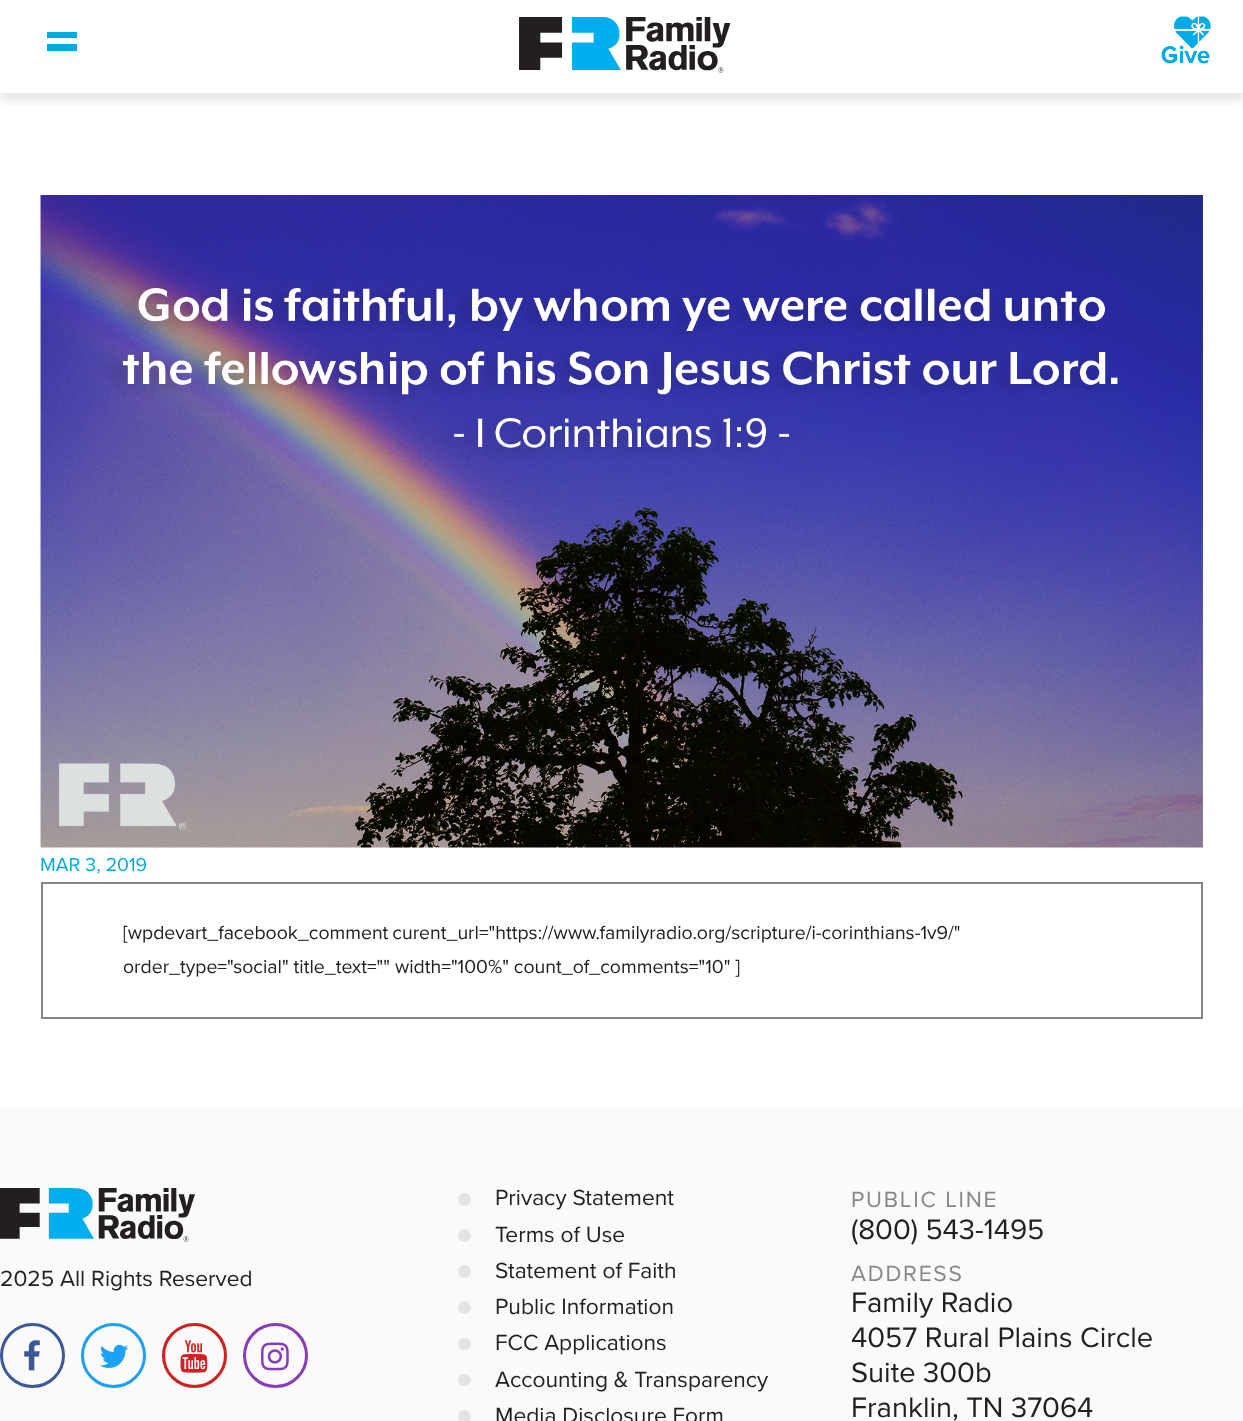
<?xml version="1.0" encoding="UTF-8"?>
<svg xmlns="http://www.w3.org/2000/svg" xmlns:xlink="http://www.w3.org/1999/xlink" width="1243" height="1421">
  <defs>
    <clipPath id="clip1"><rect x="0" y="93" width="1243" height="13" /></clipPath>
  </defs>
  <rect width="100%" height="100%" fill="#ffffff" />
  <g clip-path="url(#clip1)">
    <rect y="8" width="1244" height="93" fill="#878787" fill-opacity="0.2" filter="blur(4px)" />
  </g>
  <rect x="47" y="32" width="30" height="6" fill="#00abe5" />
  <rect x="47" y="44" width="30" height="7" fill="#00abe5" />
  <image x="519" y="17" width="212" height="56" xlink:href="image1.png" />
  <image x="1161" y="16" width="50" height="48" xlink:href="image2.png" />
  <image x="40" y="195" width="1163" height="653" xlink:href="image3.png" />
  <rect x="42" y="883" width="1160" height="135" fill="none" stroke="#808589" stroke-width="2" />
  <rect y="1107" width="1243" height="314" fill="#fafafa" />
  <image x="0" y="1188" width="195" height="54" xlink:href="image4.png" />
  <circle cx="32.5" cy="1355.5" r="31" fill="none" stroke="#3b5998" stroke-width="3" />
  <image x="24" y="1340" width="16" height="31" xlink:href="image5.png" />
  <circle cx="113.5" cy="1355.5" r="31" fill="none" stroke="#1da1f2" stroke-width="3" />
  <image x="100" y="1344" width="29" height="24" xlink:href="image6.png" />
  <circle cx="194.5" cy="1355.5" r="31" fill="none" stroke="#cd201f" stroke-width="3" />
  <image x="180" y="1340" width="28" height="33" xlink:href="image7.png" />
  <circle cx="275.5" cy="1355.5" r="31" fill="none" stroke="#8a3ab9" stroke-width="3" />
  <image x="261" y="1342" width="28" height="29" xlink:href="image8.png" />
  <circle cx="464.5" cy="1199.5" r="6.5" fill="#e5e4e4" />
  <circle cx="464.5" cy="1235.5" r="6.5" fill="#e5e4e4" />
  <circle cx="464.5" cy="1271.5" r="6.5" fill="#e5e4e4" />
  <circle cx="464.5" cy="1307.5" r="6.5" fill="#e5e4e4" />
  <rect x="458" y="1338" width="13" height="12" rx="6" fill="#e5e4e4" />
  <rect x="458" y="1374" width="13" height="12" rx="6" fill="#e5e4e4" />
  <rect x="458" y="1410" width="13" height="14" rx="6.5" fill="#e5e4e4" />
  <text x="40" y="871" style="font-family: Proxima Nova; font-size: 19.45px; fill: #00abe5">MAR 3, 2019</text>
  <text x="123" y="939" word-spacing="-1" style="font-family: Proxima Nova; font-size: 19.45px; fill: #242021">[wpdevart_facebook_comment curent_url="https://www.familyradio.org/scripture/i-corinthians-1v9/"</text>
  <text x="123" y="973" style="font-family: Proxima Nova; font-size: 19.45px; fill: #242021">order_type="social" title_text="" width="100%" count_of_comments="10" ]</text>
  <text x="0" y="1286" style="font-family: Proxima Nova; font-size: 22.75px; fill: #242021">2025 All Rights Reserved</text>
  <text x="495" y="1205" style="font-family: Proxima Nova; font-size: 22.75px; fill: #242021">Privacy Statement</text>
  <text x="495" y="1242" style="font-family: Proxima Nova; font-size: 22.75px; fill: #242021">Terms of Use</text>
  <text x="495" y="1278" style="font-family: Proxima Nova; font-size: 22.75px; fill: #242021">Statement of Faith</text>
  <text x="495" y="1314" style="font-family: Proxima Nova; font-size: 22.75px; fill: #242021">Public Information</text>
  <text x="495" y="1350" style="font-family: Proxima Nova; font-size: 22.75px; fill: #242021">FCC Applications</text>
  <text x="495" y="1387" style="font-family: Proxima Nova; font-size: 22.75px; fill: #242021">Accounting &amp; Transparency</text>
  <text x="495" y="1423" style="font-family: Proxima Nova; font-size: 22.75px; fill: #242021">Media Disclosure Form</text>
  <text x="851" y="1207" style="font-family: Proxima Nova; font-size: 22.75px; letter-spacing: 1.75px; fill: #868686">PUBLIC LINE</text>
  <text x="851" y="1239" style="font-family: Proxima Nova; font-size: 29.1px; fill: #242021">(800) 543-1495</text>
  <text x="851" y="1281" style="font-family: Proxima Nova; font-size: 22.75px; letter-spacing: 1.75px; fill: #868686">ADDRESS</text>
  <text x="851" y="1312" style="font-family: Proxima Nova; font-size: 29.1px; fill: #242021">Family Radio</text>
  <text x="851" y="1347" style="font-family: Proxima Nova; font-size: 29.1px; fill: #242021">4057 Rural Plains Circle</text>
  <text x="851" y="1382" style="font-family: Proxima Nova; font-size: 29.1px; fill: #242021">Suite 300b</text>
  <text x="851" y="1417" style="font-family: Proxima Nova; font-size: 29.1px; fill: #242021">Franklin, TN 37064</text>
</svg>
